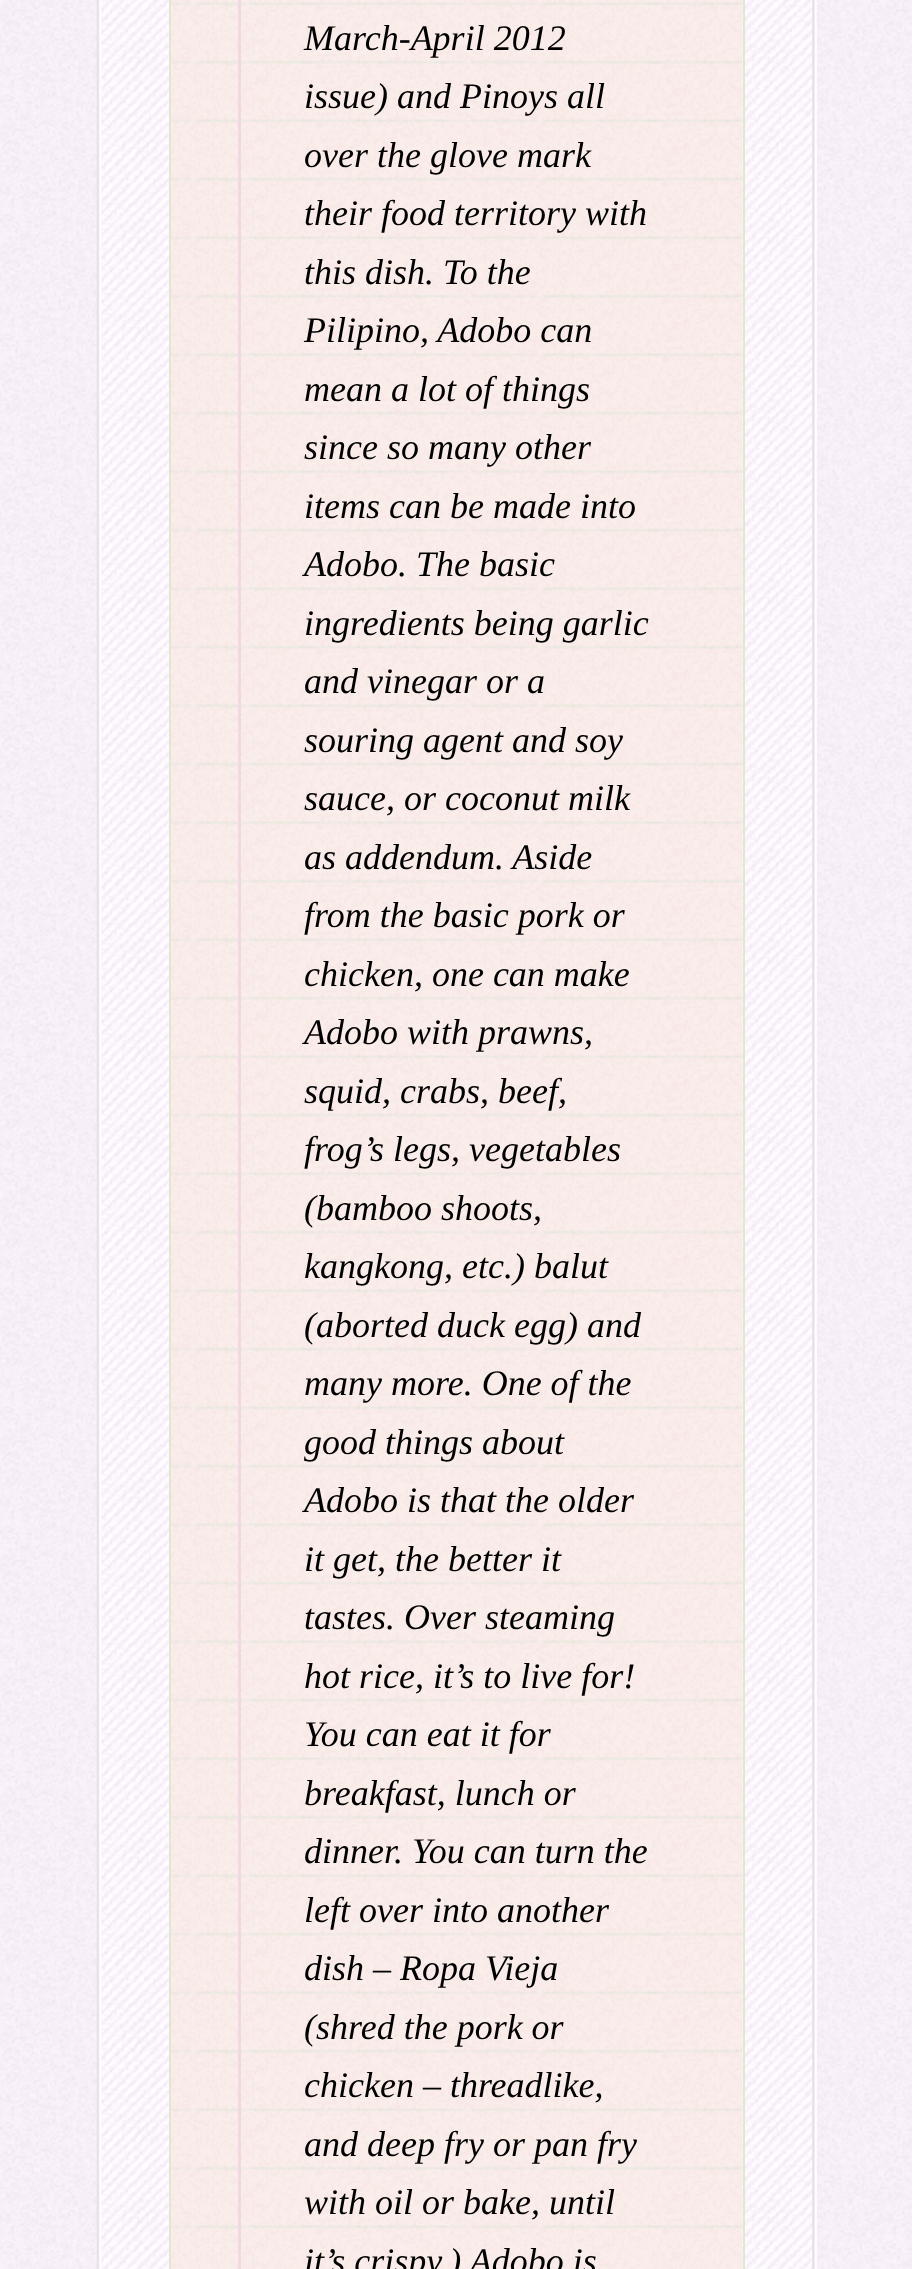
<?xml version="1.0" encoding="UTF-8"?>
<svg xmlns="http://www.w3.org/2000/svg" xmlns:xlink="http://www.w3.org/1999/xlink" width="912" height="2269">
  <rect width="100%" height="100%" fill="#ffffff" />
  <image x="0" y="0" width="912" height="2269" xlink:href="image1.png" />
  <image x="101" y="0" width="712" height="2269" xlink:href="image2.png" />
  <image x="96" y="0" width="6" height="2269" xlink:href="image3.png" />
  <rect x="743" width="2" height="2269" fill="#e1e7d0" />
  <rect x="169" width="2" height="2269" fill="#e1e7d0" />
  <image x="171" y="0" width="572" height="2269" xlink:href="image4.png" />
  <rect x="238" width="3" height="2269" fill="#f2d9e1" />
  <image x="812" y="0" width="5" height="2269" xlink:href="image5.png" />
  <text x="304" y="50" style="font-family: Liberation Serif; font-size: 36px; font-style: italic; fill: #000000">March-April 2012</text>
  <text x="304" y="108" style="font-family: Liberation Serif; font-size: 36px; font-style: italic; fill: #000000">issue) and Pinoys all</text>
  <text x="304" y="167" style="font-family: Liberation Serif; font-size: 36px; font-style: italic; fill: #000000">over the glove mark</text>
  <text x="304" y="225" style="font-family: Liberation Serif; font-size: 36px; font-style: italic; fill: #000000">their food territory with</text>
  <text x="304" y="284" style="font-family: Liberation Serif; font-size: 36px; font-style: italic; fill: #000000">this dish. To the</text>
  <text x="304" y="342" style="font-family: Liberation Serif; font-size: 36px; font-style: italic; fill: #000000">Pilipino, Adobo can</text>
  <text x="304" y="401" style="font-family: Liberation Serif; font-size: 36px; font-style: italic; fill: #000000">mean a lot of things</text>
  <text x="304" y="459" style="font-family: Liberation Serif; font-size: 36px; font-style: italic; fill: #000000">since so many other</text>
  <text x="304" y="518" style="font-family: Liberation Serif; font-size: 36px; font-style: italic; fill: #000000">items can be made into</text>
  <text x="304" y="576" style="font-family: Liberation Serif; font-size: 36px; font-style: italic; fill: #000000">Adobo. The basic</text>
  <text x="304" y="635" style="font-family: Liberation Serif; font-size: 36px; font-style: italic; fill: #000000">ingredients being garlic</text>
  <text x="304" y="693" style="font-family: Liberation Serif; font-size: 36px; font-style: italic; fill: #000000">and vinegar or a</text>
  <text x="304" y="752" style="font-family: Liberation Serif; font-size: 36px; font-style: italic; fill: #000000">souring agent and soy</text>
  <text x="304" y="810" style="font-family: Liberation Serif; font-size: 36px; font-style: italic; fill: #000000">sauce, or coconut milk</text>
  <text x="304" y="869" style="font-family: Liberation Serif; font-size: 36px; font-style: italic; fill: #000000">as addendum. Aside</text>
  <text x="304" y="927" style="font-family: Liberation Serif; font-size: 36px; font-style: italic; fill: #000000">from the basic pork or</text>
  <text x="304" y="986" style="font-family: Liberation Serif; font-size: 36px; font-style: italic; fill: #000000">chicken, one can make</text>
  <text x="304" y="1044" style="font-family: Liberation Serif; font-size: 36px; font-style: italic; fill: #000000">Adobo with prawns,</text>
  <text x="304" y="1103" style="font-family: Liberation Serif; font-size: 36px; font-style: italic; fill: #000000">squid, crabs, beef,</text>
  <text x="304" y="1161" style="font-family: Liberation Serif; font-size: 36px; font-style: italic; fill: #000000">frog’s legs, vegetables</text>
  <text x="304" y="1220" style="font-family: Liberation Serif; font-size: 36px; font-style: italic; fill: #000000">(bamboo shoots,</text>
  <text x="304" y="1278" style="font-family: Liberation Serif; font-size: 36px; font-style: italic; fill: #000000">kangkong, etc.) balut</text>
  <text x="304" y="1337" style="font-family: Liberation Serif; font-size: 36px; font-style: italic; fill: #000000">(aborted duck egg) and</text>
  <text x="304" y="1395" style="font-family: Liberation Serif; font-size: 36px; font-style: italic; fill: #000000">many more. One of the</text>
  <text x="304" y="1454" style="font-family: Liberation Serif; font-size: 36px; font-style: italic; fill: #000000">good things about</text>
  <text x="304" y="1512" style="font-family: Liberation Serif; font-size: 36px; font-style: italic; fill: #000000">Adobo is that the older</text>
  <text x="304" y="1571" style="font-family: Liberation Serif; font-size: 36px; font-style: italic; fill: #000000">it get, the better it</text>
  <text x="304" y="1629" style="font-family: Liberation Serif; font-size: 36px; font-style: italic; fill: #000000">tastes. Over steaming</text>
  <text x="304" y="1688" style="font-family: Liberation Serif; font-size: 36px; font-style: italic; fill: #000000">hot rice, it’s to live for!</text>
  <text x="304" y="1746" style="font-family: Liberation Serif; font-size: 36px; font-style: italic; fill: #000000">You can eat it for</text>
  <text x="304" y="1805" style="font-family: Liberation Serif; font-size: 36px; font-style: italic; fill: #000000">breakfast, lunch or</text>
  <text x="304" y="1863" style="font-family: Liberation Serif; font-size: 36px; font-style: italic; fill: #000000">dinner. You can turn the</text>
  <text x="304" y="1922" style="font-family: Liberation Serif; font-size: 36px; font-style: italic; fill: #000000">left over into another</text>
  <text x="304" y="1980" style="font-family: Liberation Serif; font-size: 36px; font-style: italic; fill: #000000">dish – Ropa Vieja</text>
  <text x="304" y="2039" style="font-family: Liberation Serif; font-size: 36px; font-style: italic; fill: #000000">(shred the pork or</text>
  <text x="304" y="2097" style="font-family: Liberation Serif; font-size: 36px; font-style: italic; fill: #000000">chicken – threadlike,</text>
  <text x="304" y="2156" style="font-family: Liberation Serif; font-size: 36px; font-style: italic; fill: #000000">and deep fry or pan fry</text>
  <text x="304" y="2214" style="font-family: Liberation Serif; font-size: 36px; font-style: italic; fill: #000000">with oil or bake, until</text>
  <text x="304" y="2273" style="font-family: Liberation Serif; font-size: 36px; font-style: italic; fill: #000000">it’s crispy.) Adobo is</text>
</svg>
